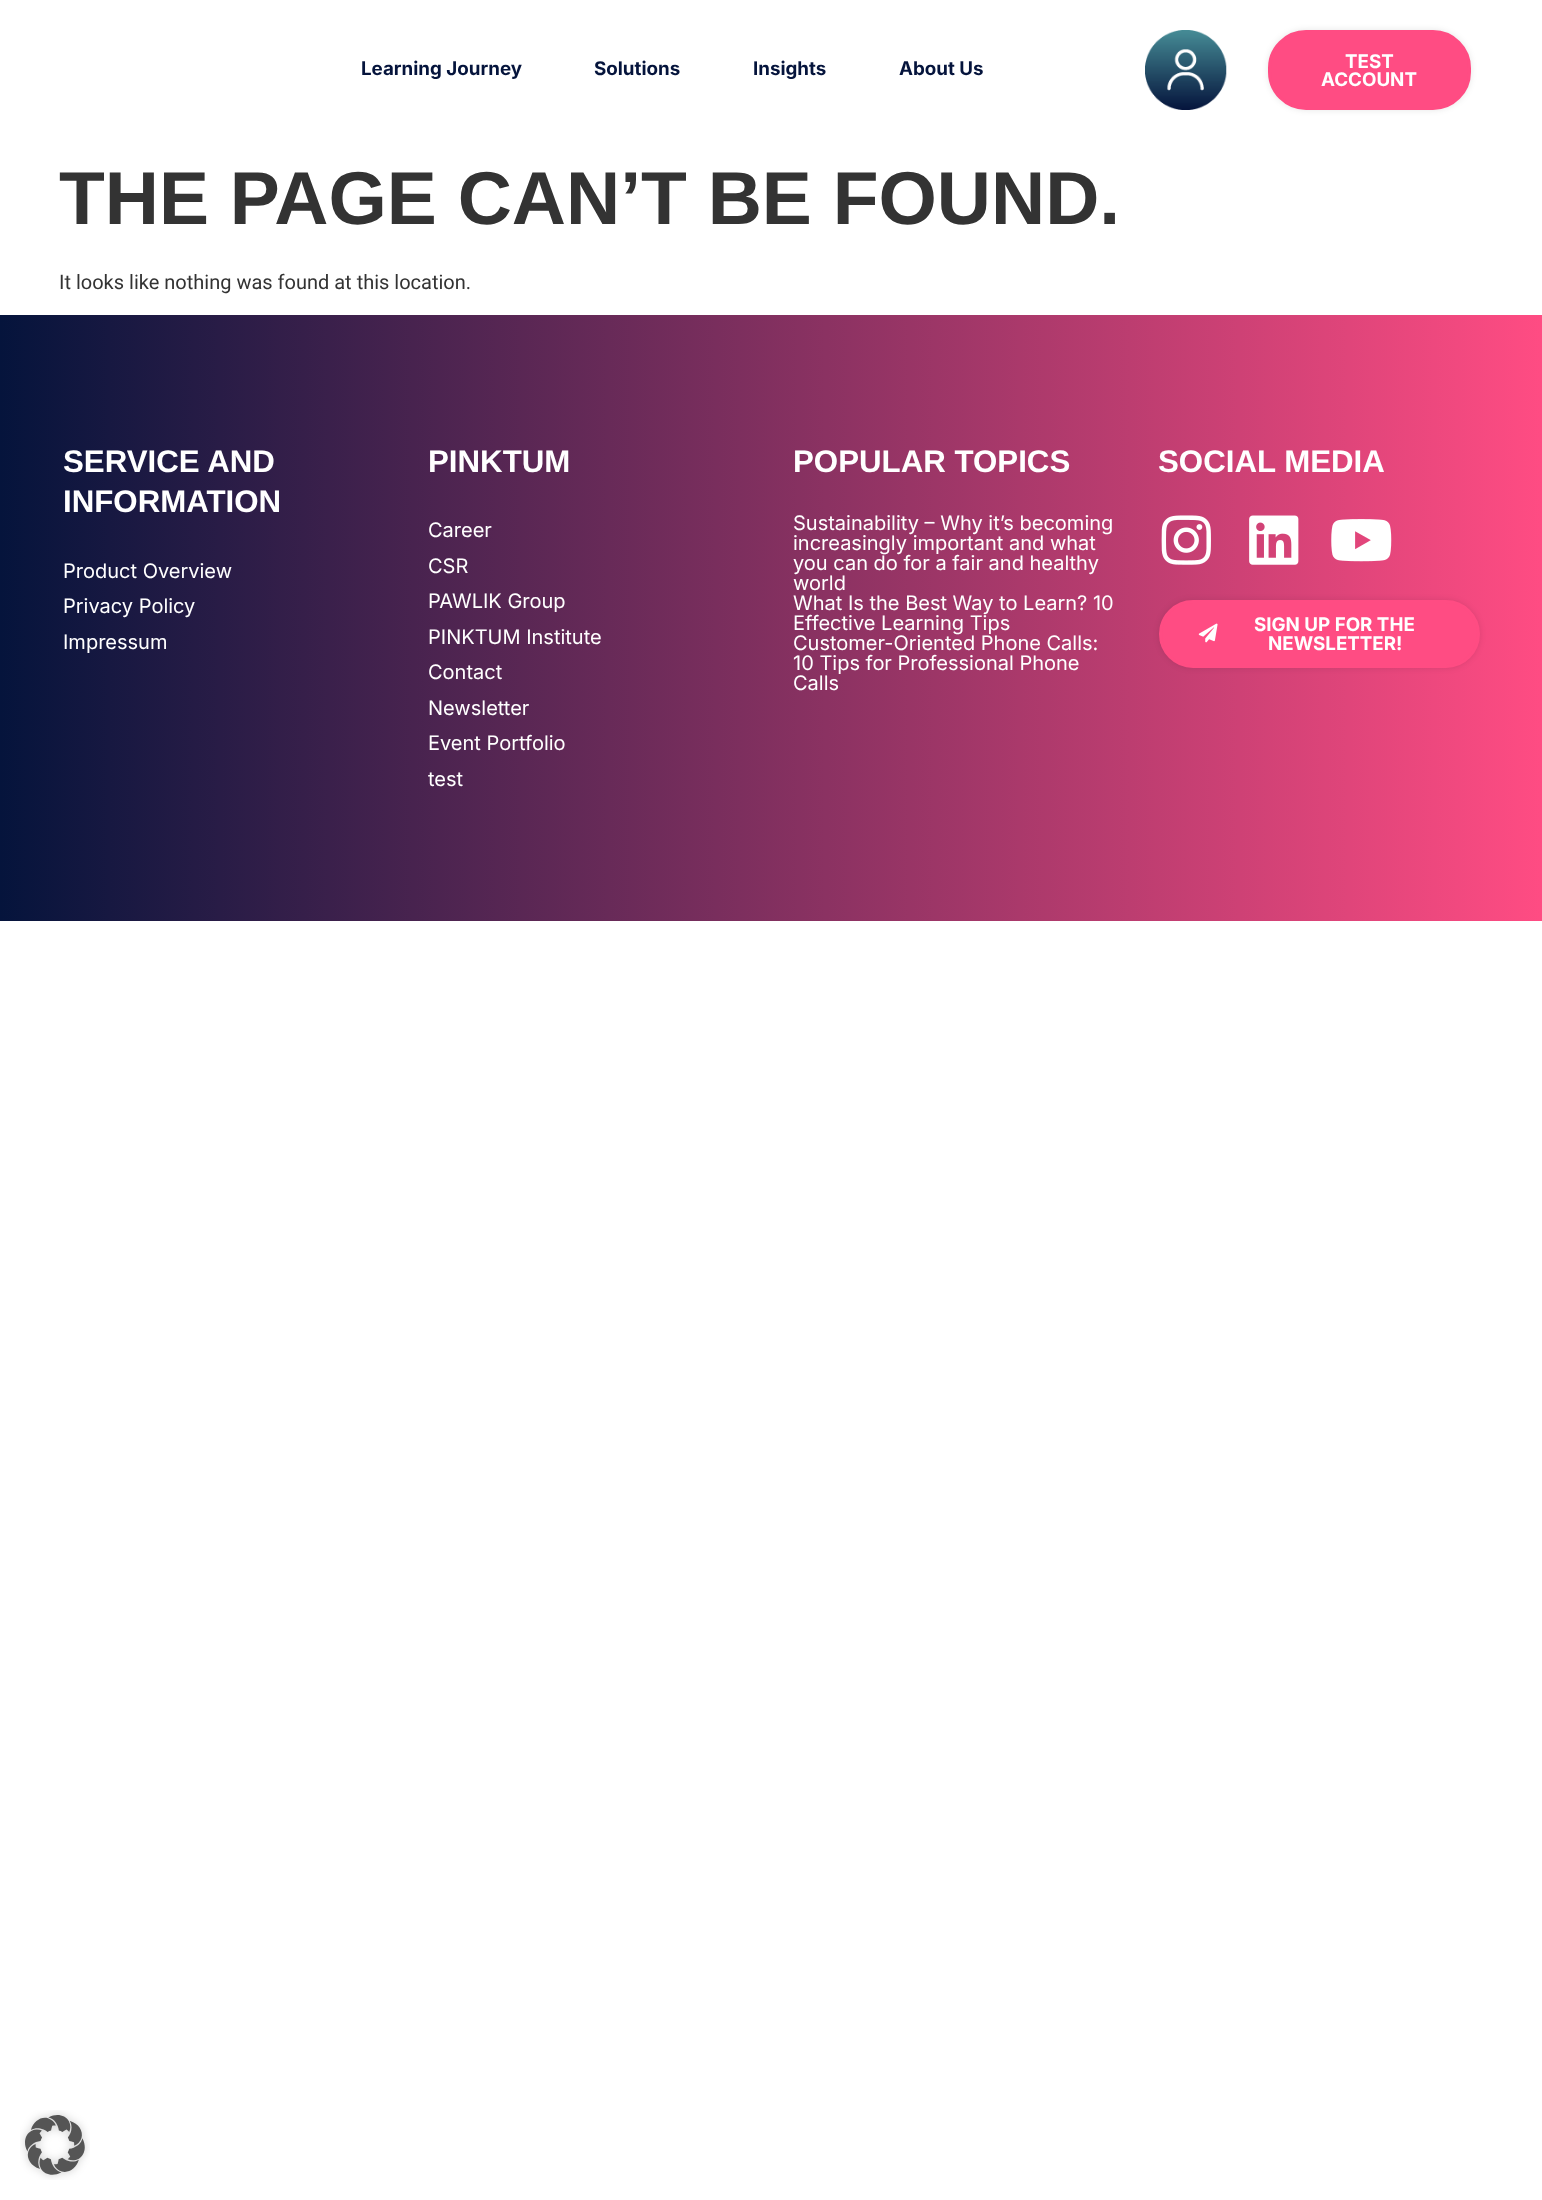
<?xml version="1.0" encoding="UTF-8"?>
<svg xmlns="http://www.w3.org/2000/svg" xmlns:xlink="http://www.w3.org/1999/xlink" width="1542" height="2200">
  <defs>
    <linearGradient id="g1" gradientUnits="userSpaceOnUse" x1="0" y1="618" x2="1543" y2="618"><stop offset="0" stop-color="#05143c" /><stop offset="1" stop-color="#ff4c83" /></linearGradient>
  </defs>
  <rect width="100%" height="100%" fill="#ffffff" />
  <image x="1145" y="30" width="82" height="80" xlink:href="image1.png" />
  <rect x="1268" y="30" width="203" height="80" rx="38" fill="#000000" fill-opacity="0.1" filter="blur(3px)" />
  <rect x="1269.5" y="31.5" width="200" height="77" rx="36.5" fill="#ff4c83" stroke="#ff4c83" stroke-width="3" />
  <rect y="315" width="1542" height="606" fill="url(#g1)" />
  <image x="1161" y="515" width="50" height="50" xlink:href="image2.png" />
  <image x="1249" y="515" width="50" height="50" xlink:href="image3.png" />
  <image x="1331" y="519" width="61" height="43" xlink:href="image4.png" />
  <rect x="1159" y="600" width="321" height="68" rx="34" fill="#000000" fill-opacity="0.1" filter="blur(3px)" />
  <rect x="1160.5" y="601.5" width="318" height="65" rx="32.5" fill="#ff4c83" stroke="#ff4c83" stroke-width="3" />
  <image x="1198" y="623" width="20" height="20" xlink:href="image5.png" />
  <image x="20" y="2110" width="70" height="70" xlink:href="image6.png" />
  <text x="361" y="75" style="font-family: Inter; font-size: 18.75px; font-weight: bold; fill: #05143c">Learning Journey</text>
  <text x="594" y="75" style="font-family: Inter; font-size: 18.75px; font-weight: bold; fill: #05143c">Solutions</text>
  <text x="753" y="75" style="font-family: Inter; font-size: 18.75px; font-weight: bold; fill: #05143c">Insights</text>
  <text x="899" y="75" style="font-family: Inter; font-size: 18.75px; font-weight: bold; fill: #05143c">About Us</text>
  <text x="1345" y="68" style="font-family: Inter; font-size: 18.75px; font-weight: bold; fill: #ffffff">TEST</text>
  <text x="1321" y="86" style="font-family: Inter; font-size: 18.75px; font-weight: bold; fill: #ffffff">ACCOUNT</text>
  <text x="59" y="224" style="font-family: Liberation Sans; font-size: 75px; font-weight: bold; fill: #333333">THE PAGE CAN’T BE FOUND.</text>
  <text x="59" y="289" style="font-family: Roboto; font-size: 20px; fill: #333333">It looks like nothing was found at this location.</text>
  <text x="63" y="472" style="font-family: Liberation Sans; font-size: 31.25px; font-weight: bold; fill: #ffffff">SERVICE AND</text>
  <text x="63" y="512" style="font-family: Liberation Sans; font-size: 31.25px; font-weight: bold; fill: #ffffff">INFORMATION</text>
  <text x="63" y="578" style="font-family: Inter; font-size: 20px; fill: #ffffff">Product Overview</text>
  <text x="63" y="613" style="font-family: Inter; font-size: 20px; fill: #ffffff">Privacy Policy</text>
  <text x="63" y="649" style="font-family: Inter; font-size: 20px; fill: #ffffff">Impressum</text>
  <text x="428" y="472" style="font-family: Liberation Sans; font-size: 31.25px; font-weight: bold; fill: #ffffff">PINKTUM</text>
  <text x="428" y="537" style="font-family: Inter; font-size: 20px; fill: #ffffff">Career</text>
  <text x="428" y="573" style="font-family: Inter; font-size: 20px; fill: #ffffff">CSR</text>
  <text x="428" y="608" style="font-family: Inter; font-size: 20px; fill: #ffffff">PAWLIK Group</text>
  <text x="428" y="644" style="font-family: Inter; font-size: 20px; fill: #ffffff">PINKTUM Institute</text>
  <text x="428" y="679" style="font-family: Inter; font-size: 20px; fill: #ffffff">Contact</text>
  <text x="428" y="715" style="font-family: Inter; font-size: 20px; fill: #ffffff">Newsletter</text>
  <text x="428" y="750" style="font-family: Inter; font-size: 20px; fill: #ffffff">Event Portfolio</text>
  <text x="428" y="786" style="font-family: Inter; font-size: 20px; fill: #ffffff">test</text>
  <text x="793" y="472" style="font-family: Liberation Sans; font-size: 31.25px; font-weight: bold; fill: #ffffff">POPULAR TOPICS</text>
  <text x="793" y="530" style="font-family: Inter; font-size: 20px; fill: #ffffff">Sustainability – Why it’s becoming</text>
  <text x="793" y="550" style="font-family: Inter; font-size: 20px; fill: #ffffff">increasingly important and what</text>
  <text x="793" y="570" style="font-family: Inter; font-size: 20px; fill: #ffffff">you can do for a fair and healthy</text>
  <text x="793" y="590" style="font-family: Inter; font-size: 20px; fill: #ffffff">world</text>
  <text x="793" y="610" style="font-family: Inter; font-size: 20px; fill: #ffffff">What Is the Best Way to Learn? 10</text>
  <text x="793" y="630" style="font-family: Inter; font-size: 20px; fill: #ffffff">Effective Learning Tips</text>
  <text x="793" y="650" style="font-family: Inter; font-size: 20px; fill: #ffffff">Customer-Oriented Phone Calls:</text>
  <text x="793" y="670" style="font-family: Inter; font-size: 20px; fill: #ffffff">10 Tips for Professional Phone</text>
  <text x="793" y="690" style="font-family: Inter; font-size: 20px; fill: #ffffff">Calls</text>
  <text x="1158" y="472" style="font-family: Liberation Sans; font-size: 31.25px; font-weight: bold; fill: #ffffff">SOCIAL MEDIA</text>
  <text x="1254" y="631" style="font-family: Inter; font-size: 18.75px; font-weight: bold; fill: #ffffff">SIGN UP FOR THE</text>
  <text x="1268" y="650" style="font-family: Inter; font-size: 18.75px; font-weight: bold; fill: #ffffff">NEWSLETTER!</text>
</svg>
